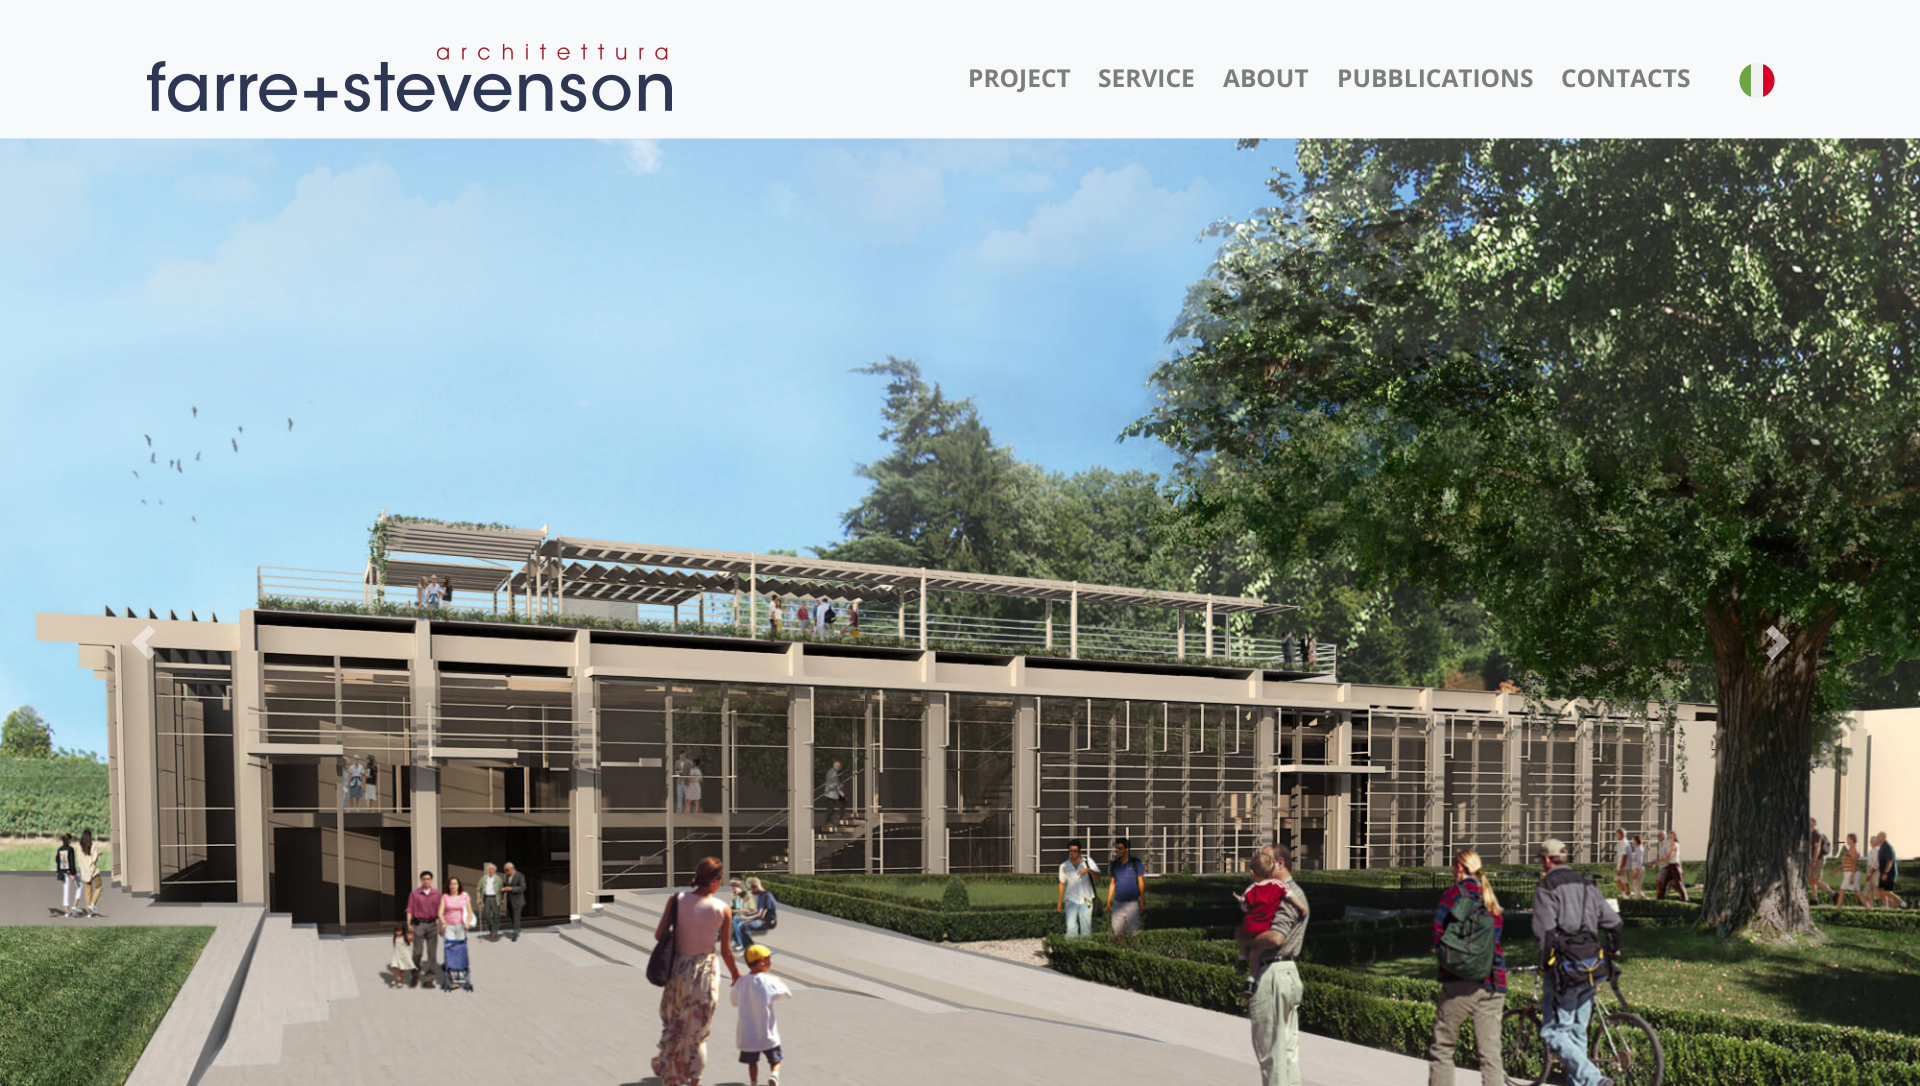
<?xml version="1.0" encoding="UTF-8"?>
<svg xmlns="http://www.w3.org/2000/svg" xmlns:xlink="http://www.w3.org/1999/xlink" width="1920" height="1086">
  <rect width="100%" height="100%" fill="#ffffff" />
  <rect width="1920" height="138" fill="#f8f9fa" />
  <image x="147" y="44" width="525" height="68" xlink:href="image1.png" />
  <image x="1739" y="63" width="36" height="35" xlink:href="image2.png" />
  <image x="0" y="138" width="1920" height="948" xlink:href="image3.png" />
  <path d="M 149 625 l -17.5 17 l 17.5 18 l 6.5 -7 l -11 -11 l 11 -10.5 z" fill="#ffffff" fill-opacity="0.5" />
  <path d="M 1772.5 625 l -6.5 6.5 l 11 10.5 l -11 11 l 6.5 7 l 17.5 -18 z" fill="#ffffff" fill-opacity="0.5" />
  <text x="968" y="87" style="font-family: Open Sans; font-size: 24.5px; font-weight: bold; fill: #7c7d7d">PROJECT</text>
  <text x="1098" y="87" style="font-family: Open Sans; font-size: 24.5px; font-weight: bold; fill: #7c7d7d">SERVICE</text>
  <text x="1223" y="87" style="font-family: Open Sans; font-size: 24.5px; font-weight: bold; fill: #7c7d7d">ABOUT</text>
  <text x="1337" y="87" style="font-family: Open Sans; font-size: 24.5px; font-weight: bold; fill: #7c7d7d">PUBBLICATIONS</text>
  <text x="1561" y="87" style="font-family: Open Sans; font-size: 24.5px; font-weight: bold; fill: #7c7d7d">CONTACTS</text>
</svg>
